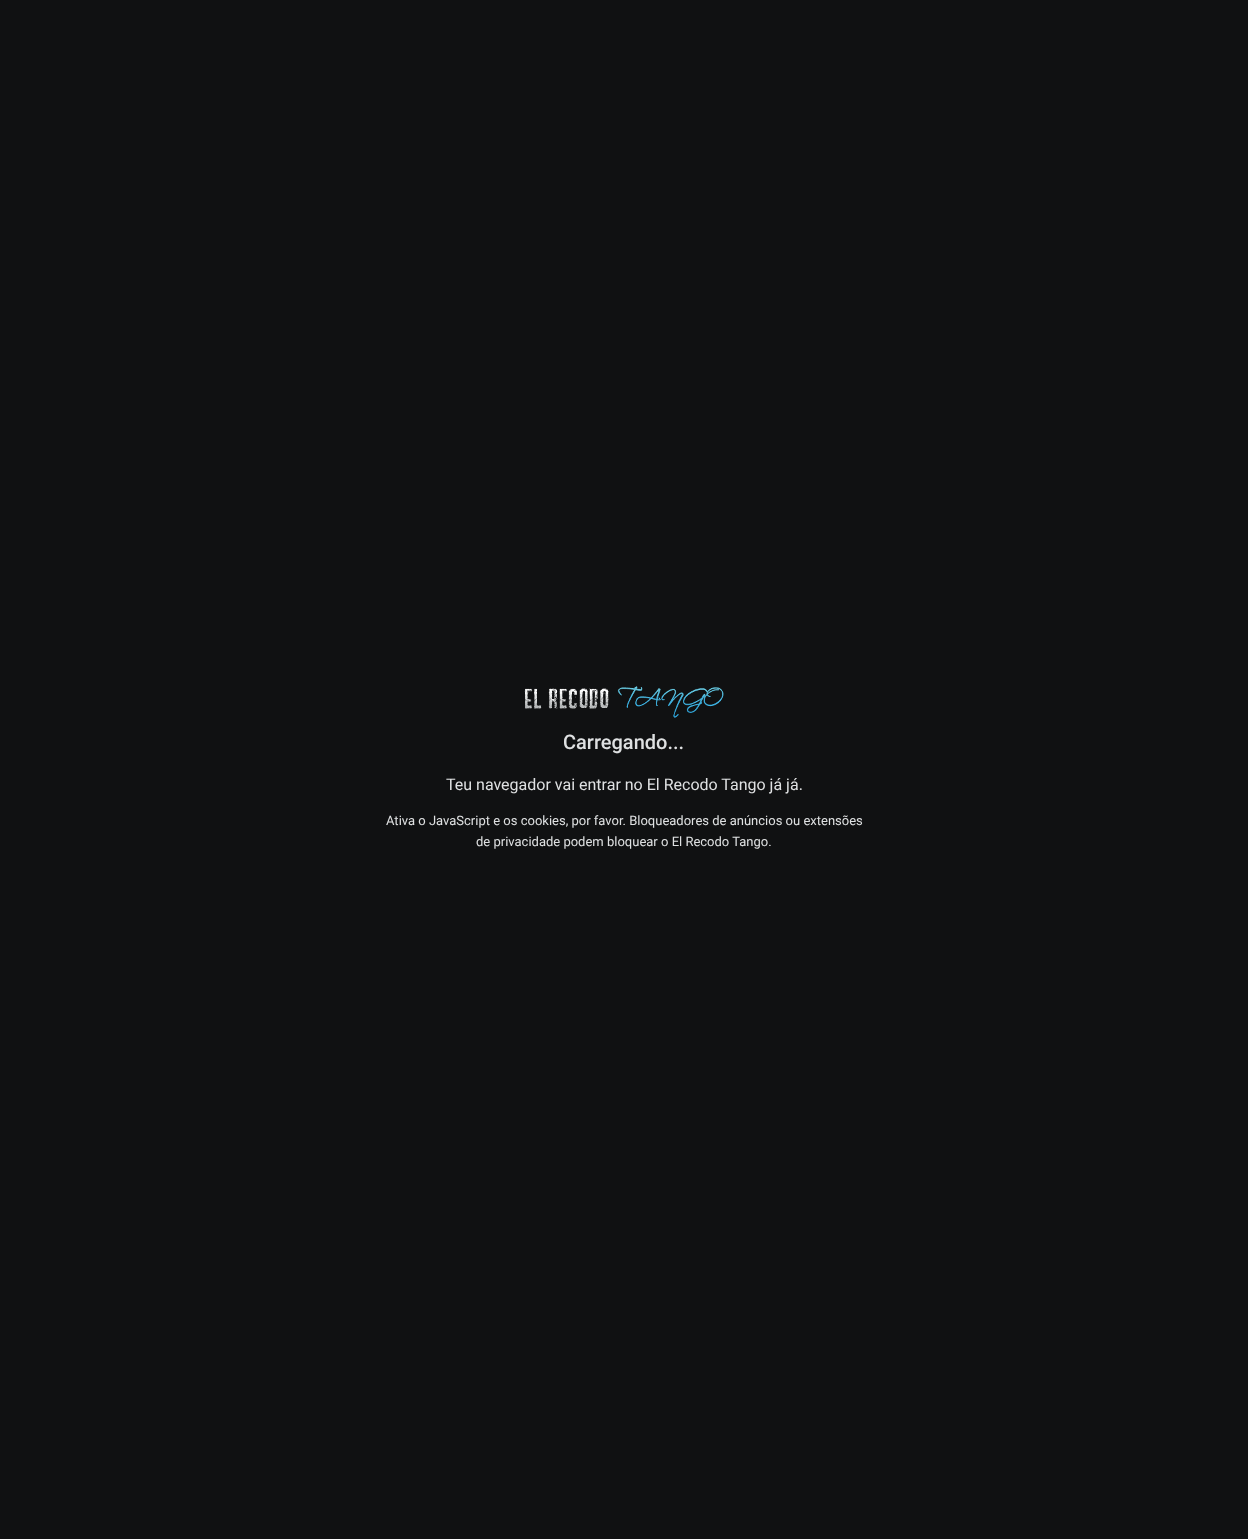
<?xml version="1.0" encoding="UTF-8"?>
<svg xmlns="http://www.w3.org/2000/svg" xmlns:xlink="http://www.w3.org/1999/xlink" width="1248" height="1539">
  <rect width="100%" height="100%" fill="#101112" />
  <image x="524" y="686" width="200" height="32" xlink:href="image1.png" />
  <text x="563" y="749" style="font-family: Roboto; font-size: 20px; font-weight: 500; fill: #dfe1e2">Carregando...</text>
  <text x="446" y="790" style="font-family: Roboto; font-size: 16px; fill: #dfe1e2">Teu navegador vai entrar no El Recodo Tango já já.</text>
  <text x="386" y="825" style="font-family: Roboto; font-size: 13px; fill: #dfe1e2">Ativa o JavaScript e os cookies, por favor. Bloqueadores de anúncios ou extensões</text>
  <text x="476" y="846" style="font-family: Roboto; font-size: 13px; fill: #dfe1e2">de privacidade podem bloquear o El Recodo Tango.</text>
</svg>
